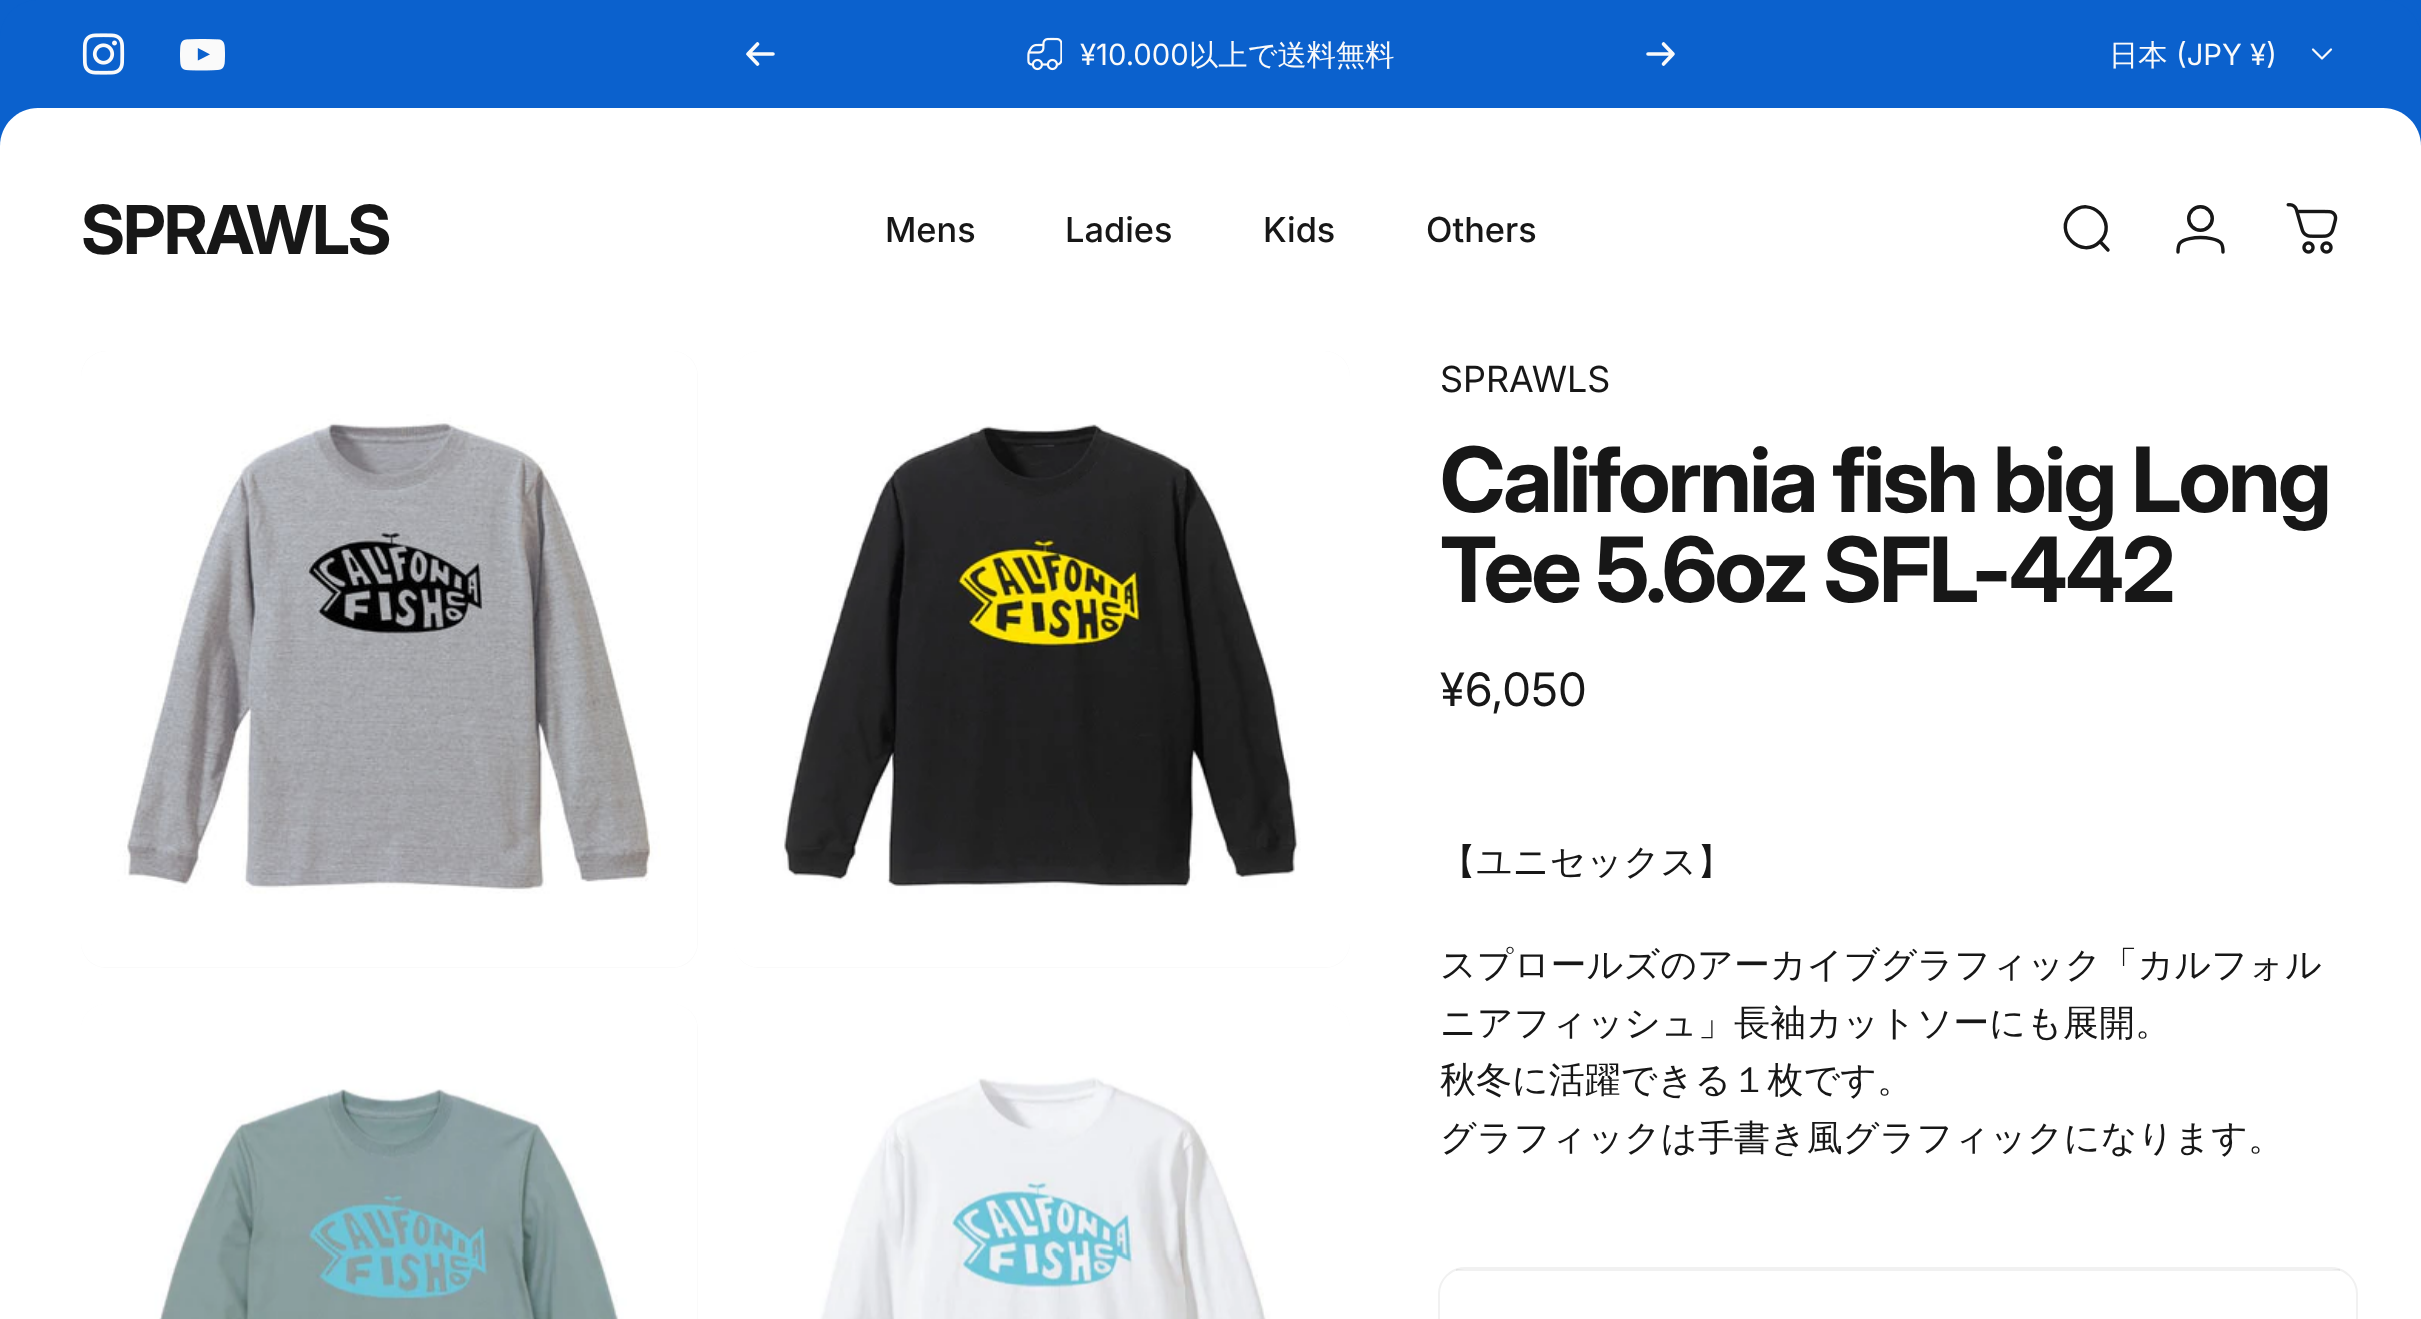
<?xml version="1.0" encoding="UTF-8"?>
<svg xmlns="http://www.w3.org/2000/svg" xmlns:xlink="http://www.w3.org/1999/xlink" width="2421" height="1319">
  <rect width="100%" height="100%" fill="#ffffff" />
  <rect width="2421" height="38" fill="#0b61cd" />
  <path d="M 38 0 h 2345 c 21 0 38 17 38 38 v 108 h -2421 v -108 c 0 -21 17 -38 38 -38 z" fill="#0b61cd" />
  <image x="82" y="33" width="43" height="42" xlink:href="image1.png" />
  <image x="180" y="39" width="45" height="32" xlink:href="image2.png" />
  <path d="M 757.5 44 l -9.5 10 m 0 0 l 9.5 10 m -9.5 -10 h 25" fill="none" stroke="#fafafa" stroke-width="3.6" stroke-linecap="round" stroke-linejoin="round" />
  <image x="1027" y="37" width="35" height="34" xlink:href="image3.png" />
  <path d="M 1648 54 h 25 m 0 0 l -9.5 -10 m 9.5 10 l -9.5 10" fill="none" stroke="#fafafa" stroke-width="3.6" stroke-linecap="round" stroke-linejoin="round" />
  <path d="M 2313 49.5 l 9 9 l 9 -9" fill="none" stroke="#fafafa" stroke-width="2.2" stroke-linecap="round" stroke-linejoin="round" />
  <path d="M 38 108 h 2345 c 21 0 38 17 38 38 v 205 h -2421 v -205 c 0 -21 17 -38 38 -38 z" fill="#ffffff" />
  <path d="M 2108 250 l -8 -8.5 m 0 0 c 19 -18.5 -10 -47.5 -28.5 -28.5 c -19 18.5 10 47.5 28.5 28.5 z" fill="none" stroke="#171717" stroke-width="3.4" stroke-linecap="round" />
  <circle cx="2200.5" cy="218.5" r="11.75" fill="none" stroke="#171717" stroke-width="3.5" />
  <path d="M 2200.5 237.5 c 5 0 17 1 20.5 5.5 c 2 2.5 2 5.5 2 9 m -22.5 -14.5 c -5 0 -17 1 -20.5 5.5 c -2 2.5 -2 5.5 -2 9" fill="none" stroke="#171717" stroke-width="3.4" stroke-linecap="round" />
  <image x="2286" y="203" width="52" height="51" xlink:href="image4.png" />
  <rect x="81" y="351" width="617" height="617" rx="25" fill="#fafafa" />
  <image x="81" y="351" width="616" height="616" xlink:href="image5.png" />
  <rect x="734" y="351" width="616" height="617" rx="25" fill="#fafafa" />
  <image x="734" y="351" width="616" height="616" xlink:href="image6.png" />
  <rect x="81" y="1004" width="617" height="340" rx="25" fill="#fafafa" />
  <image x="81" y="1004" width="616" height="315" xlink:href="image7.png" />
  <rect x="734" y="1004" width="616" height="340" rx="25" fill="#fafafa" />
  <image x="734" y="1004" width="616" height="315" xlink:href="image8.png" />
  <rect x="1439" y="1268" width="918" height="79" rx="26" fill="none" stroke="#f1f1f1" stroke-width="2" />
  <rect x="1456" y="1269" width="884" height="2" fill="#171717" fill-opacity="0.06" />
  <text x="1080" y="65" style="font-family: Inter; font-size: 29.25px; fill: #fafafa">¥10.000</text>
  <text x="1189" y="65" style="font-family: WenQuanYi Zen Hei; font-size: 29.25px; font-weight: 500; fill: #fafafa">以上で送料無料</text>
  <text x="2109" y="65" style="font-family: WenQuanYi Zen Hei; font-size: 29.25px; font-weight: 500; fill: #fafafa">日本</text>
  <text x="2176" y="65" style="font-family: Inter; font-size: 29.25px; fill: #fafafa">(JPY ¥)</text>
  <text x="81" y="254" style="font-family: 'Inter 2'; font-size: 67.5px; font-weight: bold; letter-spacing: -2px; fill: #171717">SPRAWLS</text>
  <text x="885" y="242" style="font-family: Inter; font-size: 34.5px; font-weight: 500; fill: #171717">Mens</text>
  <text x="1065" y="242" style="font-family: Inter; font-size: 34.5px; font-weight: 500; fill: #171717">Ladies</text>
  <text x="1263" y="242" style="font-family: Inter; font-size: 34.5px; font-weight: 500; fill: #171717">Kids</text>
  <text x="1426" y="242" style="font-family: Inter; font-size: 34.5px; font-weight: 500; fill: #171717">Others</text>
  <text x="1440" y="392" style="font-family: 'Inter 2'; font-size: 36px; fill: #171717">SPRAWLS</text>
  <text x="1440" y="512" style="font-family: Inter; font-size: 90px; font-weight: bold; letter-spacing: -2.7px; fill: #171717">California fish big Long</text>
  <text x="1440" y="602" style="font-family: Inter; font-size: 90px; font-weight: bold; letter-spacing: -2.7px; fill: #171717">Tee 5.6oz SFL-442</text>
  <text x="1440" y="706" style="font-family: 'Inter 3'; font-size: 46px; fill: #171717">¥6,050</text>
  <text x="1440" y="874" style="font-family: WenQuanYi Zen Hei; font-size: 36px; font-weight: 500; fill: #171717">【ユニセックス】</text>
  <text x="1440" y="977" style="font-family: WenQuanYi Zen Hei; font-size: 36px; font-weight: 500; fill: #171717">スプロールズのアーカイブグラフィック「カルフォル</text>
  <text x="1440" y="1035" style="font-family: WenQuanYi Zen Hei; font-size: 36px; font-weight: 500; fill: #171717">ニアフィッシュ」長袖カットソーにも展開。</text>
  <text x="1440" y="1092" style="font-family: WenQuanYi Zen Hei; font-size: 36px; font-weight: 500; fill: #171717">秋冬に活躍できる１枚です。</text>
  <text x="1440" y="1150" style="font-family: WenQuanYi Zen Hei; font-size: 36px; font-weight: 500; fill: #171717">グラフィックは手書き風グラフィックになります。</text>
</svg>
